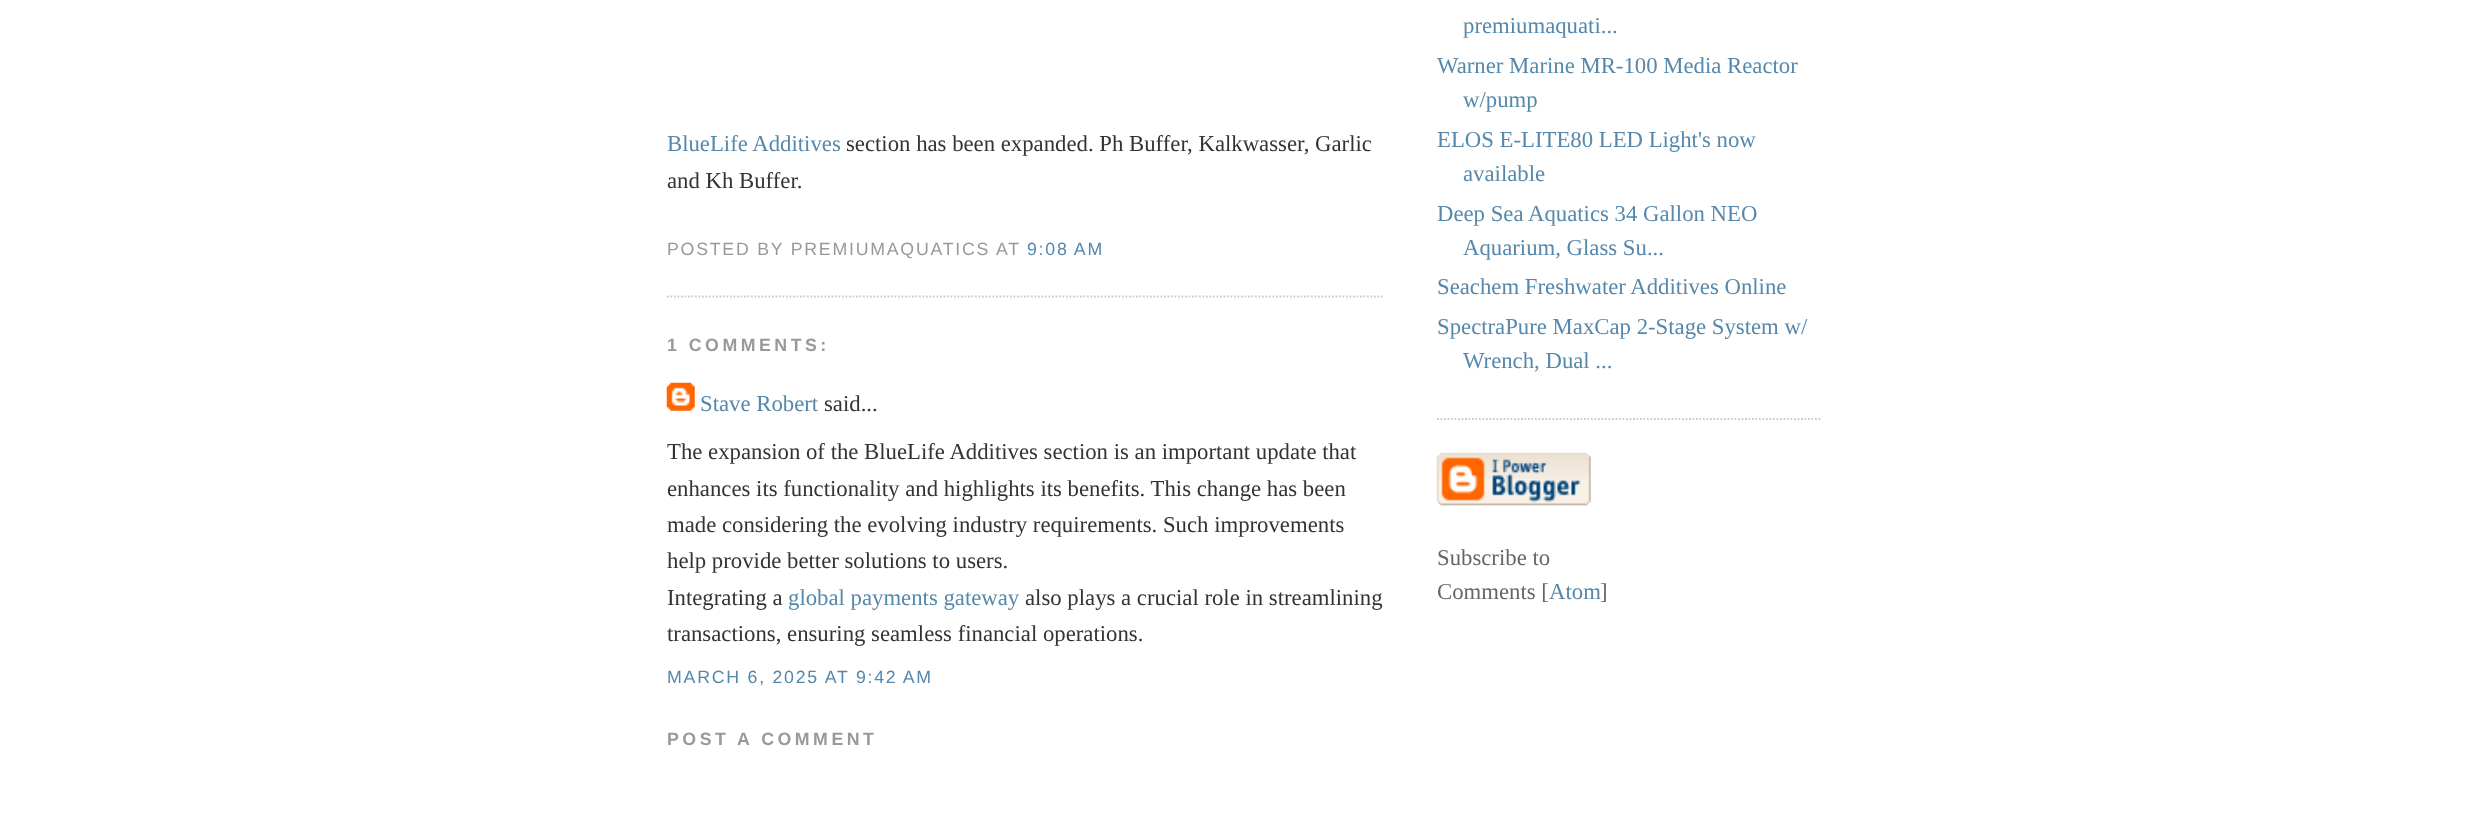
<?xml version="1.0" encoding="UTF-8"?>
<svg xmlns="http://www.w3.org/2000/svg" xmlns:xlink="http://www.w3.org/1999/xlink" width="2487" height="830">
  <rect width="100%" height="100%" fill="#ffffff" />
  <path d="M 667 296.5 h 717" fill="none" stroke="#cccccc" stroke-width="1.8" stroke-dasharray="1.75 1.75" />
  <image x="666" y="382" width="29" height="29" xlink:href="image1.png" />
  <path d="M 1437 419 h 385" fill="none" stroke="#cccccc" stroke-width="1.8" stroke-dasharray="1.75 1.75" />
  <image x="1436" y="452" width="155" height="54" xlink:href="image2.png" />
  <text x="667" y="151" style="font-family: Liberation Serif; font-size: 22.75px; fill: #5588aa">BlueLife Additives</text>
  <text x="846" y="151" style="font-family: Liberation Serif; font-size: 22.75px; fill: #333333">section has been expanded. Ph Buffer, Kalkwasser, Garlic</text>
  <text x="667" y="188" style="font-family: Liberation Serif; font-size: 22.75px; fill: #333333">and Kh Buffer.</text>
  <text x="667" y="255" style="font-family: Liberation Sans; font-size: 17.75px; letter-spacing: 1.75px; fill: #999999">POSTED BY PREMIUMAQUATICS AT</text>
  <text x="1027" y="255" style="font-family: Liberation Sans; font-size: 17.75px; letter-spacing: 1.75px; fill: #5588aa">9:08 AM</text>
  <text x="667" y="351" style="font-family: Liberation Sans; font-size: 17.75px; font-weight: bold; letter-spacing: 3.5px; fill: #999999">1 COMMENTS:</text>
  <text x="700" y="411" style="font-family: Liberation Serif; font-size: 22.75px; fill: #5588aa">Stave Robert</text>
  <text x="824" y="411" style="font-family: Liberation Serif; font-size: 22.75px; fill: #333333">said...</text>
  <text x="667" y="459" style="font-family: Liberation Serif; font-size: 22.75px; fill: #333333">The expansion of the BlueLife Additives section is an important update that</text>
  <text x="667" y="496" style="font-family: Liberation Serif; font-size: 22.75px; fill: #333333">enhances its functionality and highlights its benefits. This change has been</text>
  <text x="667" y="532" style="font-family: Liberation Serif; font-size: 22.75px; fill: #333333">made considering the evolving industry requirements. Such improvements</text>
  <text x="667" y="568" style="font-family: Liberation Serif; font-size: 22.75px; fill: #333333">help provide better solutions to users.</text>
  <text x="667" y="605" style="font-family: Liberation Serif; font-size: 22.75px; fill: #333333">Integrating a</text>
  <text x="788" y="605" style="font-family: Liberation Serif; font-size: 22.75px; fill: #5588aa">global payments gateway</text>
  <text x="1025" y="605" style="font-family: Liberation Serif; font-size: 22.75px; fill: #333333">also plays a crucial role in streamlining</text>
  <text x="667" y="641" style="font-family: Liberation Serif; font-size: 22.75px; fill: #333333">transactions, ensuring seamless financial operations.</text>
  <text x="667" y="683" style="font-family: Liberation Sans; font-size: 17.75px; letter-spacing: 1.75px; fill: #5588aa">MARCH 6, 2025 AT 9:42 AM</text>
  <text x="667" y="745" style="font-family: Liberation Sans; font-size: 17.75px; font-weight: bold; letter-spacing: 3.5px; fill: #999999">POST A COMMENT</text>
  <text x="1463" y="33" style="font-family: Liberation Serif; font-size: 22.75px; fill: #5588aa">premiumaquati...</text>
  <text x="1437" y="73" style="font-family: Liberation Serif; font-size: 22.75px; fill: #5588aa">Warner Marine MR-100 Media Reactor</text>
  <text x="1463" y="107" style="font-family: Liberation Serif; font-size: 22.75px; fill: #5588aa">w/pump</text>
  <text x="1437" y="147" style="font-family: Liberation Serif; font-size: 22.75px; fill: #5588aa">ELOS E-LITE80 LED Light's now</text>
  <text x="1463" y="181" style="font-family: Liberation Serif; font-size: 22.75px; fill: #5588aa">available</text>
  <text x="1437" y="221" style="font-family: Liberation Serif; font-size: 22.75px; fill: #5588aa">Deep Sea Aquatics 34 Gallon NEO</text>
  <text x="1463" y="255" style="font-family: Liberation Serif; font-size: 22.75px; fill: #5588aa">Aquarium, Glass Su...</text>
  <text x="1437" y="294" style="font-family: Liberation Serif; font-size: 22.75px; fill: #5588aa">Seachem Freshwater Additives Online</text>
  <text x="1437" y="334" style="font-family: Liberation Serif; font-size: 22.75px; fill: #5588aa">SpectraPure MaxCap 2-Stage System w/</text>
  <text x="1463" y="368" style="font-family: Liberation Serif; font-size: 22.75px; fill: #5588aa">Wrench, Dual ...</text>
  <text x="1437" y="565" style="font-family: Liberation Serif; font-size: 22.75px; fill: #666666">Subscribe to</text>
  <text x="1437" y="599" style="font-family: Liberation Serif; font-size: 22.75px; fill: #666666">Comments [</text>
  <text x="1549" y="599" style="font-family: Liberation Serif; font-size: 22.75px; fill: #5588aa">Atom</text>
  <text x="1600" y="599" style="font-family: Liberation Serif; font-size: 22.75px; fill: #666666">]</text>
</svg>
